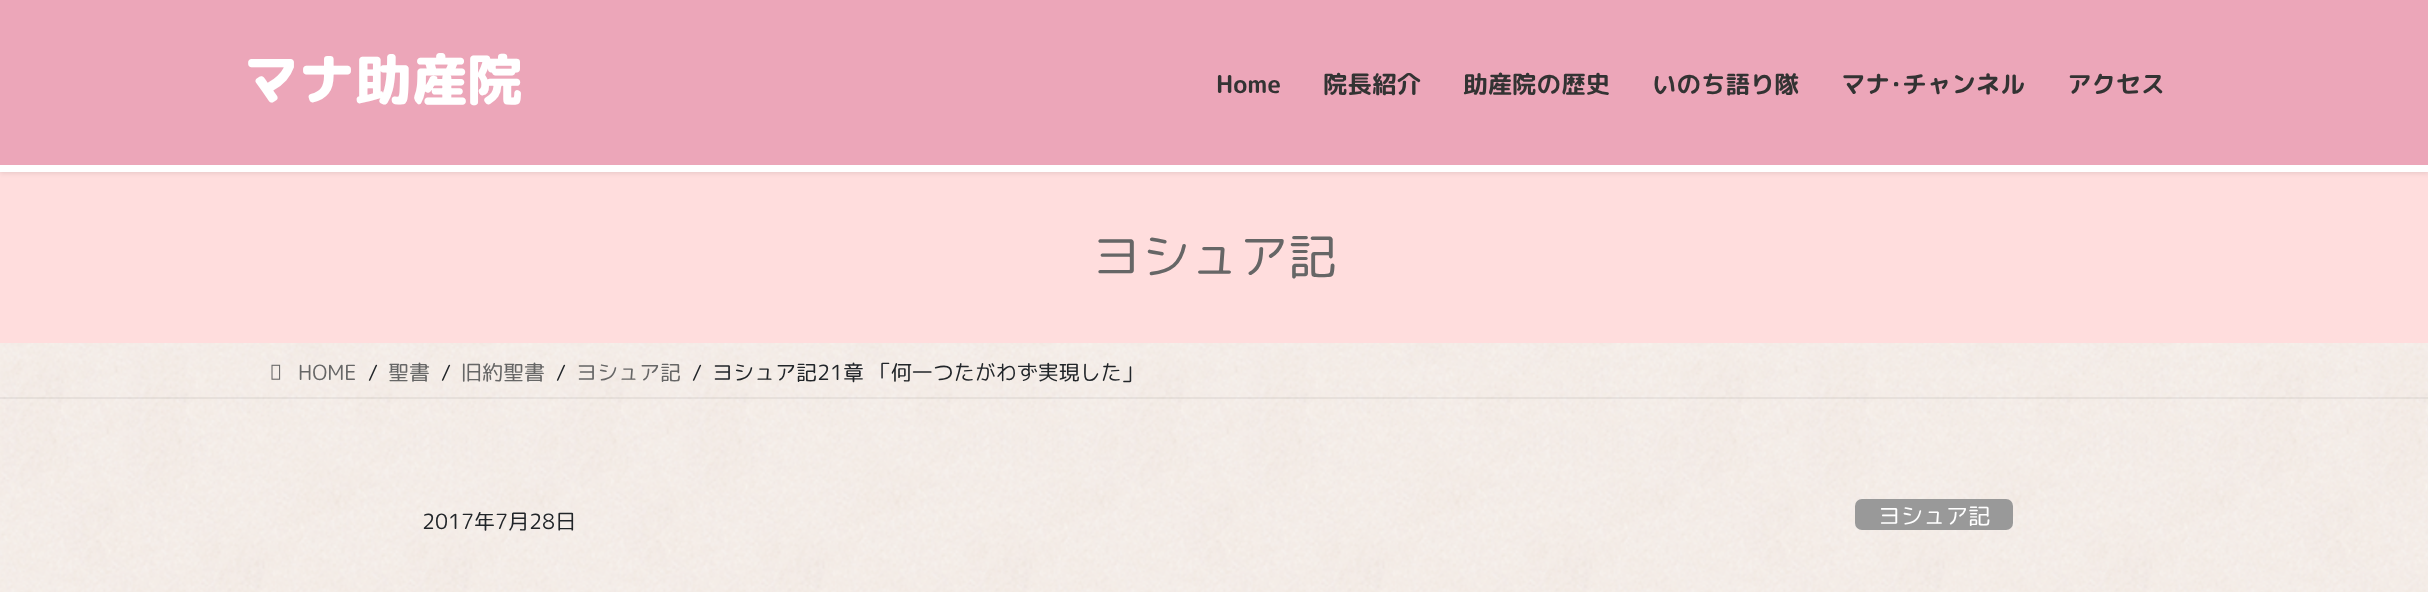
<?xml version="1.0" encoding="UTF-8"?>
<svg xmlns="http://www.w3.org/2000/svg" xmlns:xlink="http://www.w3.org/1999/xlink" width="2428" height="592">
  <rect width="100%" height="100%" fill="#ffffff" />
  <image x="0" y="343" width="2428" height="249" xlink:href="image1.png" />
  <rect y="172" width="2428" height="171" fill="#ffdddd" />
  <rect y="2" width="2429" height="171" fill="#000000" fill-opacity="0.1" filter="blur(2.5px)" />
  <rect width="2428" height="165" fill="#eca6b9" />
  <rect y="165" width="2428" height="7" fill="#ffffff" />
  <rect y="397" width="2428" height="2" fill="#000000" fill-opacity="0.05" />
  <image x="271" y="364" width="10" height="16" xlink:href="image2.png" />
  <rect x="1855" y="499" width="158" height="31" rx="7" fill="#999999" />
  <text x="243" y="100" style="font-family: 'Rounded Mplus 1c'; font-size: 56px; font-weight: 800; fill: #ffffff">マナ助産院</text>
  <text x="1216" y="93" style="font-family: 'Rounded Mplus 1c Bold'; font-size: 24.5px; font-weight: bold; fill: #333333">Home</text>
  <text x="1323" y="93" style="font-family: 'Rounded Mplus 1c Bold'; font-size: 24.5px; font-weight: bold; fill: #333333">院長紹介</text>
  <text x="1463" y="93" style="font-family: 'Rounded Mplus 1c Bold'; font-size: 24.5px; font-weight: bold; fill: #333333">助産院の歴史</text>
  <text x="1652" y="93" style="font-family: 'Rounded Mplus 1c Bold'; font-size: 24.5px; font-weight: bold; fill: #333333">いのち語り隊</text>
  <text x="1841" y="93" style="font-family: 'Rounded Mplus 1c Bold'; font-size: 24.5px; font-weight: bold; fill: #333333">マナ･チャンネル</text>
  <text x="2067" y="93" style="font-family: 'Rounded Mplus 1c Bold'; font-size: 24.5px; font-weight: bold; fill: #333333">アクセス</text>
  <text x="1092" y="274" style="font-family: 'Rounded Mplus 1c'; font-size: 49px; fill: #666666">ヨシュア記</text>
  <text x="298" y="380" style="font-family: 'Rounded Mplus 1c'; font-size: 21px; fill: #666666">HOME</text>
  <text x="368" y="380" style="font-family: 'Rounded Mplus 1c'; font-size: 21px; fill: #212529">/</text>
  <text x="388" y="380" style="font-family: 'Rounded Mplus 1c'; font-size: 21px; fill: #666666">聖書</text>
  <text x="441" y="380" style="font-family: 'Rounded Mplus 1c'; font-size: 21px; fill: #212529">/</text>
  <text x="461" y="380" style="font-family: 'Rounded Mplus 1c'; font-size: 21px; fill: #666666">旧約聖書</text>
  <text x="556" y="380" style="font-family: 'Rounded Mplus 1c'; font-size: 21px; fill: #212529">/</text>
  <text x="576" y="380" style="font-family: 'Rounded Mplus 1c'; font-size: 21px; fill: #666666">ヨシュア記</text>
  <text x="692" y="380" style="font-family: 'Rounded Mplus 1c'; font-size: 21px; fill: #212529">/</text>
  <text x="712" y="380" style="font-family: 'Rounded Mplus 1c'; font-size: 21px; fill: #212529">ヨシュア記21章 「何一つたがわず実現した」</text>
  <text x="422" y="529" style="font-family: 'Rounded Mplus 1c'; font-size: 21px; fill: #212529">2017年7月28日</text>
  <text x="1878" y="524" style="font-family: 'Rounded Mplus 1c'; font-size: 22.5px; fill: #ffffff">ヨシュア記</text>
</svg>
